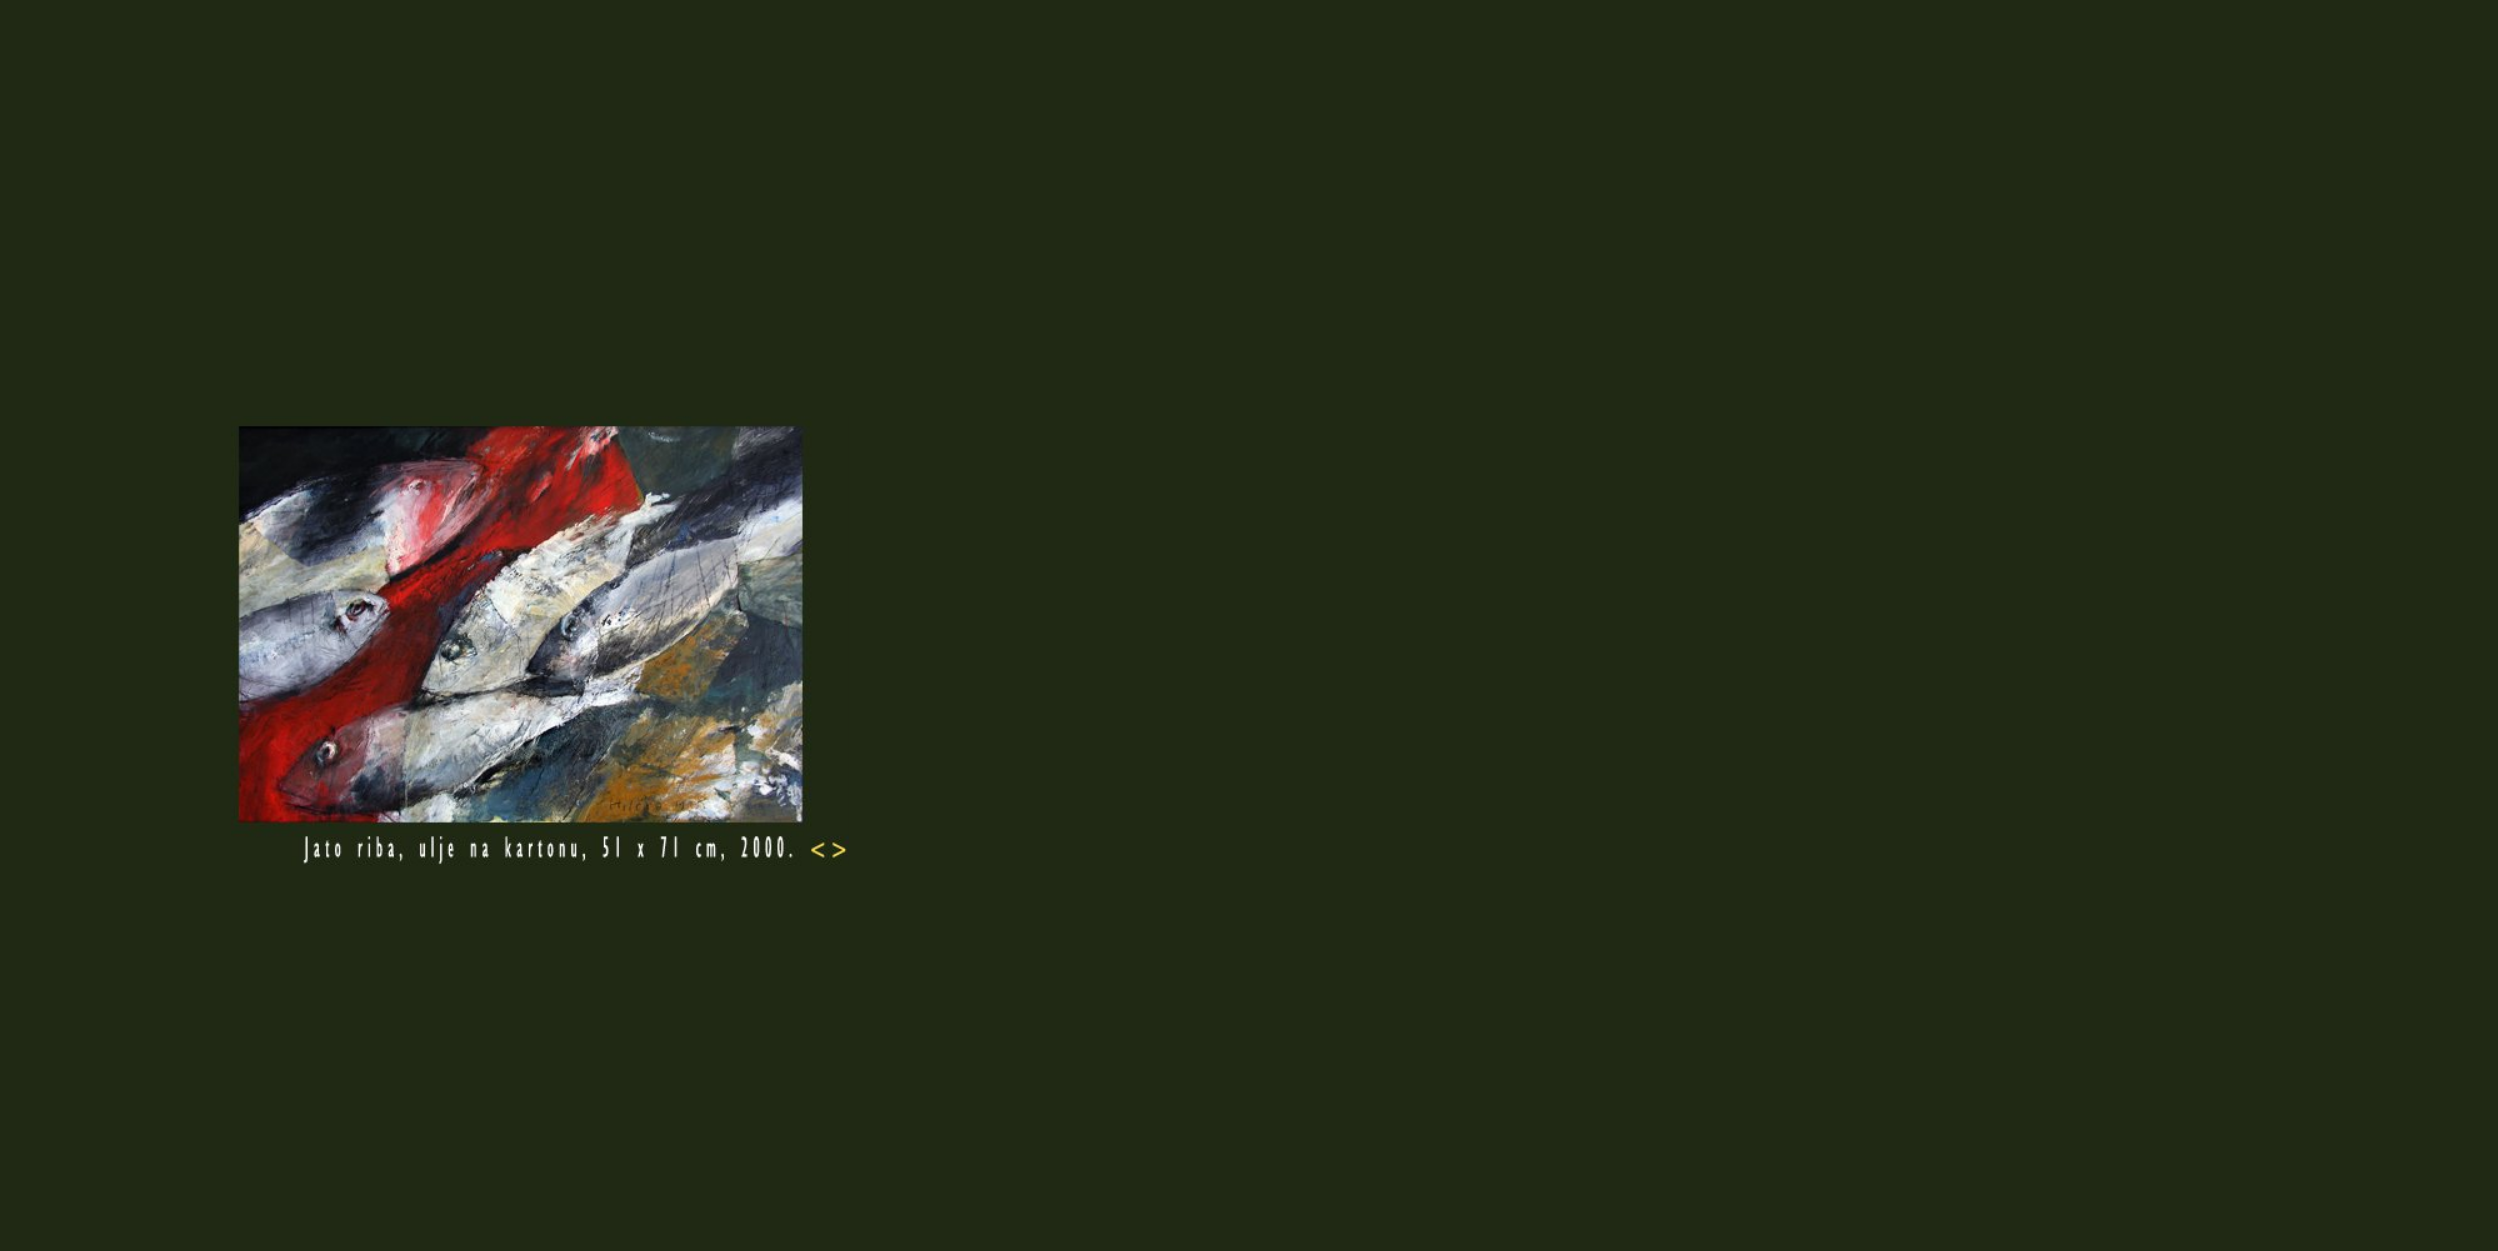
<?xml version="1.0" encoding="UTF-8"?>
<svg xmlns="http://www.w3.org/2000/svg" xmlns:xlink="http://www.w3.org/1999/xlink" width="2498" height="1251">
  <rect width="100%" height="100%" fill="#202914" />
  <image x="231" y="416" width="618" height="450" xlink:href="image1.png" />
</svg>
